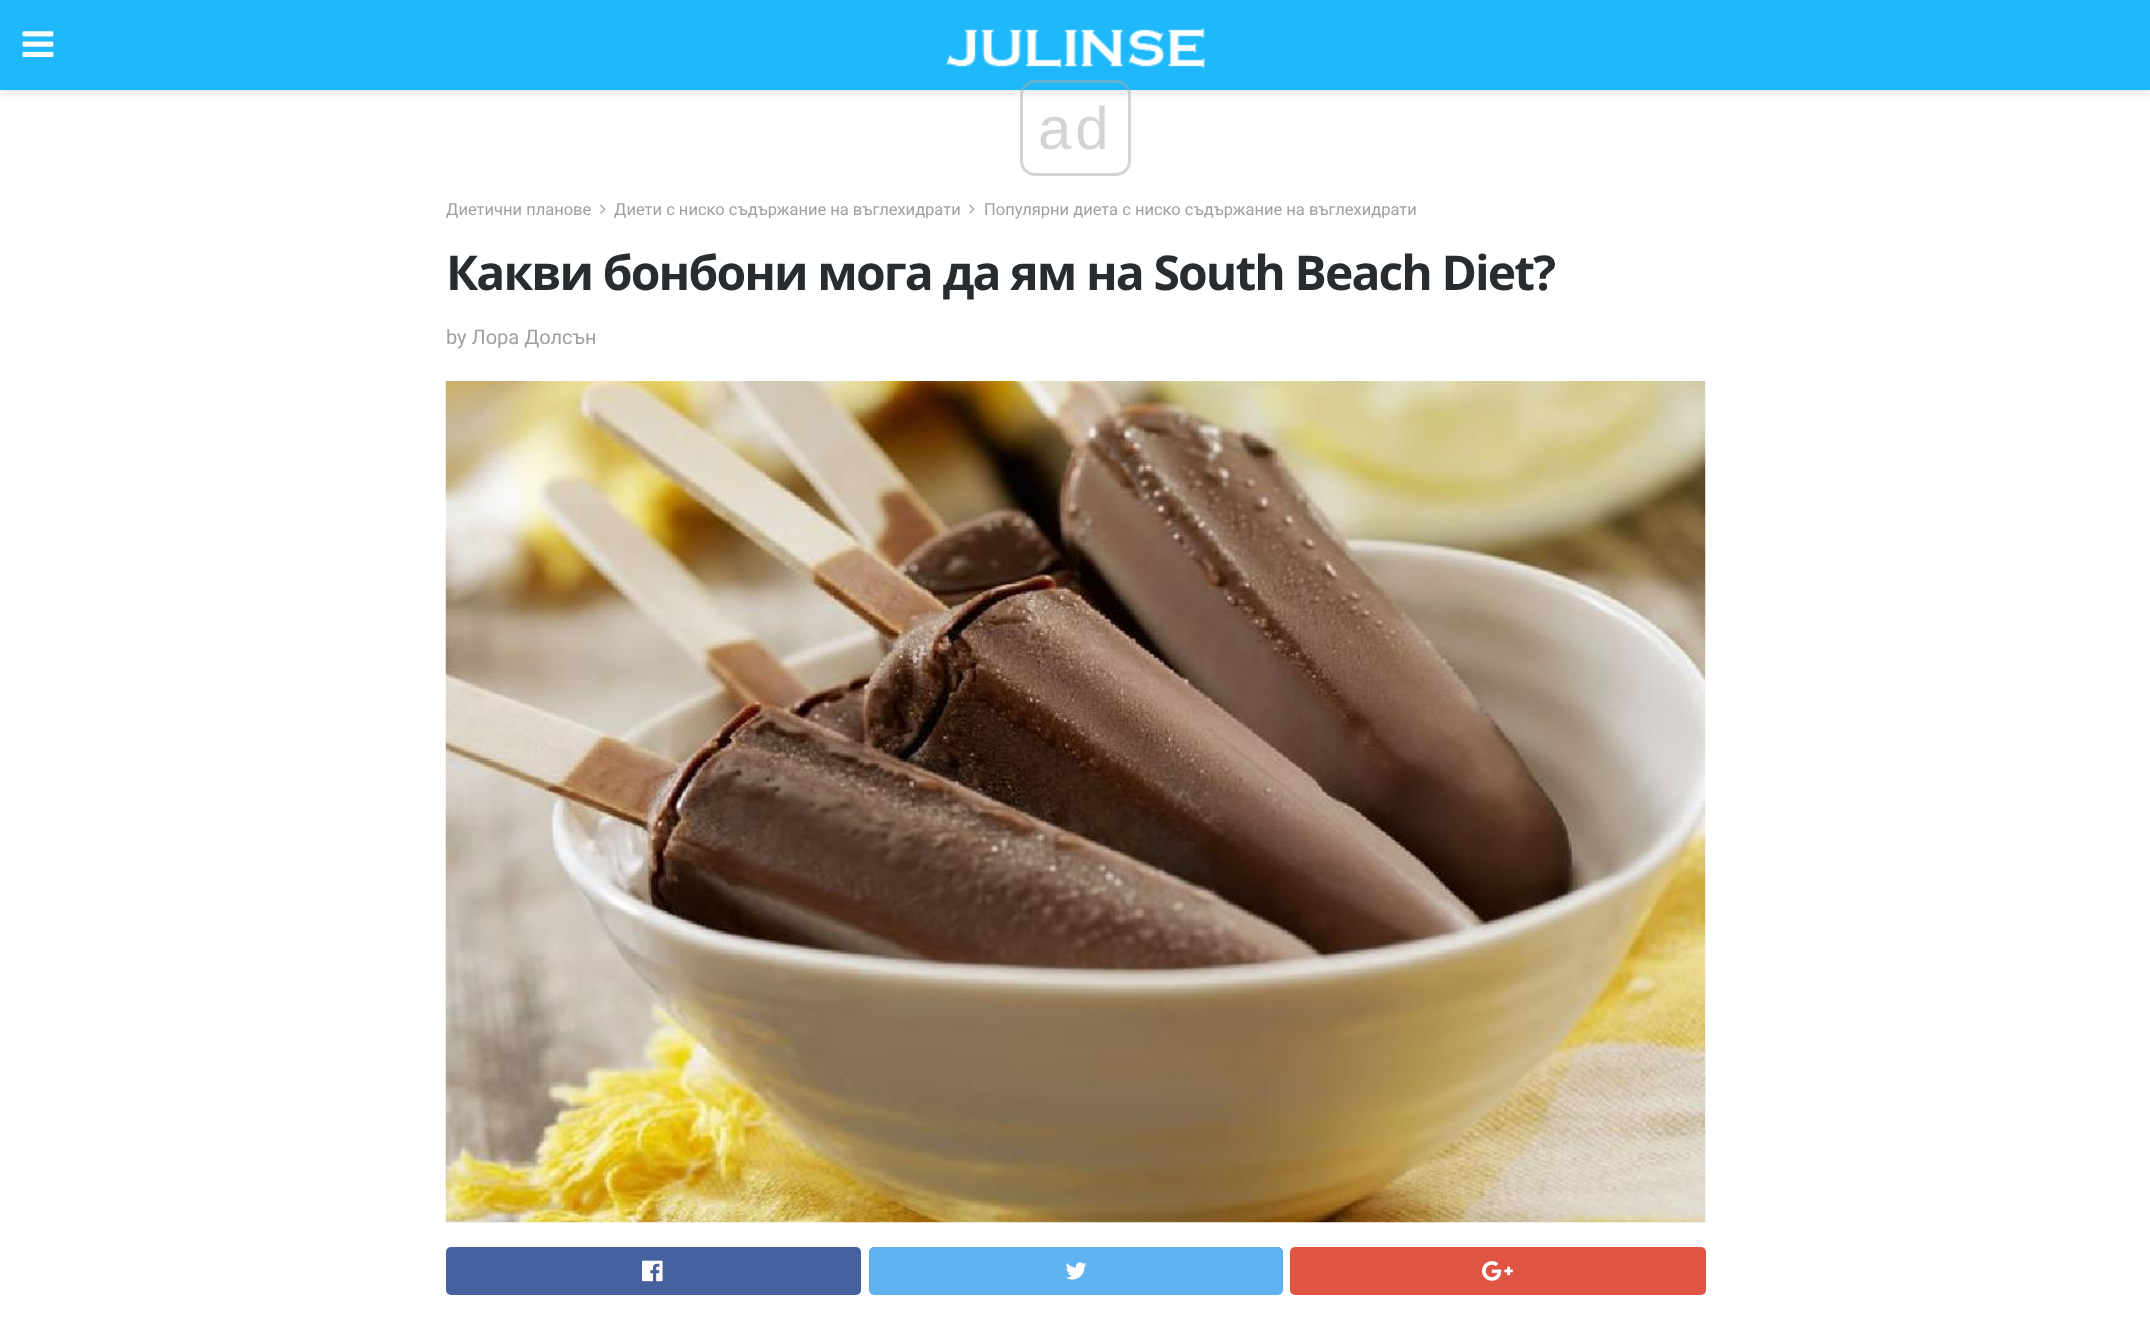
<?xml version="1.0" encoding="UTF-8"?>
<svg xmlns="http://www.w3.org/2000/svg" xmlns:xlink="http://www.w3.org/1999/xlink" width="2150" height="1333">
  <rect width="100%" height="100%" fill="#ffffff" />
  <rect y="3" width="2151" height="90" fill="#000000" fill-opacity="0.1" filter="blur(4.5px)" />
  <rect width="2150" height="90" fill="#1fb9fb" />
  <image x="22" y="31" width="32" height="26" xlink:href="image1.png" />
  <image x="946" y="28" width="259" height="40" xlink:href="image2.png" />
  <rect x="1021.5" y="81.5" width="108" height="93" rx="13.5" fill="none" stroke="#aaaaaa" stroke-opacity="0.5" stroke-width="3" />
  <image x="600" y="204" width="6" height="10" xlink:href="image3.png" />
  <image x="969" y="204" width="6" height="10" xlink:href="image3.png" />
  <image x="445" y="381" width="1261" height="842" xlink:href="image4.png" />
  <rect x="446" y="1247" width="415" height="48" rx="5" fill="#45629f" />
  <image x="642" y="1260" width="21" height="22" xlink:href="image5.png" />
  <rect x="869" y="1247" width="414" height="48" rx="5" fill="#5eb2ef" />
  <image x="1065" y="1262" width="22" height="18" xlink:href="image6.png" />
  <rect x="1290" y="1247" width="416" height="48" rx="5" fill="#df5443" />
  <image x="1482" y="1261" width="31" height="20" xlink:href="image7.png" />
  <text x="1038" y="149" style="font-family: Liberation Sans; font-size: 60px; letter-spacing: 4px; fill: #d4d4d4">ad</text>
  <text x="446" y="215" style="font-family: Roboto; font-size: 16.5px; fill: #a0a0a0">Диетични планове</text>
  <text x="614" y="215" style="font-family: Roboto; font-size: 16.5px; fill: #a0a0a0">Диети с ниско съдържание на въглехидрати</text>
  <text x="984" y="215" style="font-family: Roboto; font-size: 16.5px; fill: #a0a0a0">Популярни диета с ниско съдържание на въглехидрати</text>
  <text x="446" y="290" style="font-family: Open Sans; font-size: 48px; font-weight: bold; letter-spacing: -1.9px; fill: #282c2e">Какви бонбони мога да ям на South Beach Diet?</text>
  <text x="446" y="344" style="font-family: Roboto; font-size: 20px; fill: #a0a0a0">by Лора Долсън</text>
</svg>
